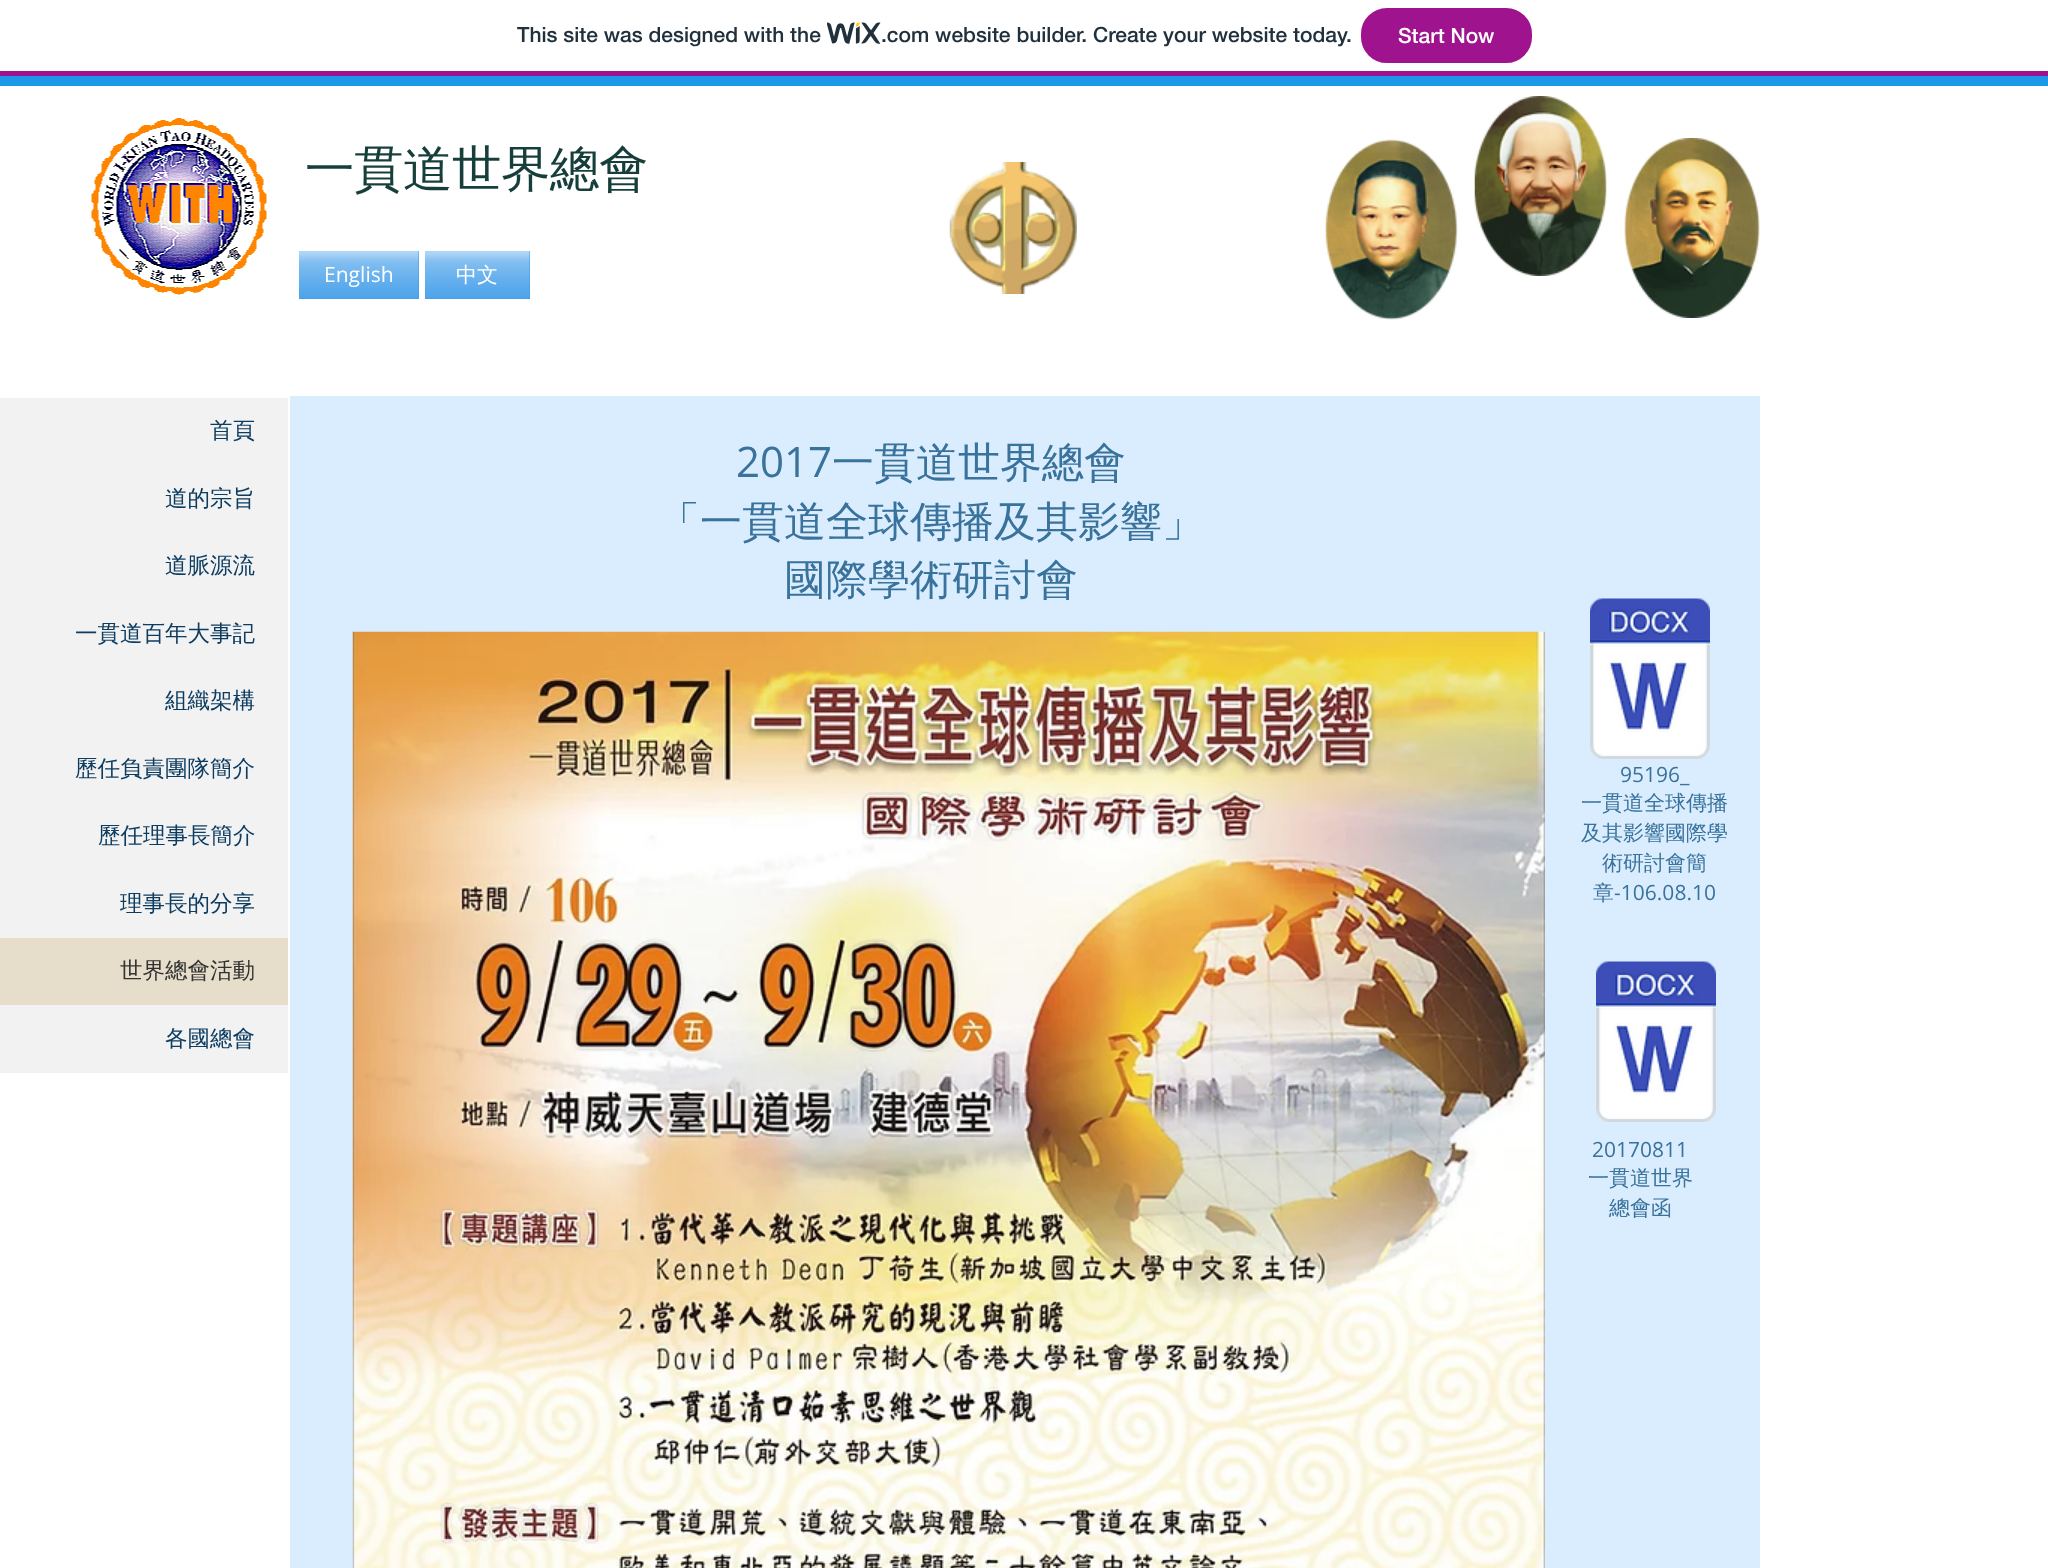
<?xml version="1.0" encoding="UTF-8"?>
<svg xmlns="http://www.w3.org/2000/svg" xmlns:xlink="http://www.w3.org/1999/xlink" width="2048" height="1568">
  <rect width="100%" height="100%" fill="#ffffff" />
  <rect y="71" width="2048" height="5" fill="#a0138e" />
  <image x="827" y="22" width="54" height="22" xlink:href="image1.png" />
  <rect x="1362" y="9" width="169" height="53" rx="25" fill="#a0138e" stroke="#a0138e" stroke-width="2" />
  <rect y="76" width="2048" height="10" fill="#1b99e8" />
  <image x="91" y="118" width="176" height="177" xlink:href="image2.png" />
  <image x="949" y="162" width="128" height="132" xlink:href="image3.png" />
  <image x="1325" y="139" width="133" height="181" xlink:href="image4.png" />
  <image x="1474" y="96" width="133" height="180" xlink:href="image5.png" />
  <image x="1624" y="138" width="136" height="180" xlink:href="image6.png" />
  <rect x="299" y="251" width="120" height="48" fill="#3d9be9" />
  <image x="299" y="251" width="120" height="48" xlink:href="image7.png" />
  <rect x="425" y="251" width="105" height="48" fill="#3d9be9" />
  <image x="425" y="251" width="105" height="48" xlink:href="image8.png" />
  <rect y="398" width="288" height="540" fill="#f2f2f2" />
  <rect y="938" width="288" height="67" fill="#e6deca" />
  <rect y="1005" width="288" height="68" fill="#f2f2f2" />
  <rect x="290" y="396" width="1470" height="1172" fill="#daedff" />
  <image x="352" y="631" width="1193" height="937" xlink:href="image9.png" />
  <image x="1590" y="598" width="120" height="161" xlink:href="image10.png" />
  <image x="1596" y="961" width="120" height="161" xlink:href="image10.png" />
  <text x="517" y="42" style="font-family: 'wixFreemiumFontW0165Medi'; font-size: 21px; font-weight: 500; fill: #20303c">This site was designed with the</text>
  <text x="881" y="42" style="font-family: 'wixFreemiumFontW0165Medi'; font-size: 21px; font-weight: 500; fill: #20303c">.com website builder. Create your website today.</text>
  <text x="1398" y="43" style="font-family: 'wixFreemiumFontW0165Medi'; font-size: 21px; font-weight: 500; fill: #ffffff">Start Now</text>
  <text x="305" y="186" style="font-family: WenQuanYi Zen Hei; font-size: 49.5px; font-weight: 500; letter-spacing: -0.5px; fill: #163e3a">一貫道世界總會</text>
  <text x="324" y="282" style="font-family: Open Sans; font-size: 21px; fill: #ffffff">English</text>
  <text x="456" y="282" style="font-family: WenQuanYi Zen Hei; font-size: 21px; font-weight: 500; fill: #ffffff">中文</text>
  <text x="210" y="438" style="font-family: WenQuanYi Zen Hei; font-size: 22.5px; font-weight: 500; fill: #0c3c60">首頁</text>
  <text x="165" y="506" style="font-family: WenQuanYi Zen Hei; font-size: 22.5px; font-weight: 500; fill: #0c3c60">道的宗旨</text>
  <text x="165" y="573" style="font-family: WenQuanYi Zen Hei; font-size: 22.5px; font-weight: 500; fill: #0c3c60">道脈源流</text>
  <text x="75" y="641" style="font-family: WenQuanYi Zen Hei; font-size: 22.5px; font-weight: 500; fill: #0c3c60">一貫道百年大事記</text>
  <text x="165" y="708" style="font-family: WenQuanYi Zen Hei; font-size: 22.5px; font-weight: 500; fill: #0c3c60">組織架構</text>
  <text x="75" y="776" style="font-family: WenQuanYi Zen Hei; font-size: 22.5px; font-weight: 500; fill: #0c3c60">歷任負責團隊簡介</text>
  <text x="98" y="843" style="font-family: WenQuanYi Zen Hei; font-size: 22.5px; font-weight: 500; fill: #0c3c60">歷任理事長簡介</text>
  <text x="120" y="911" style="font-family: WenQuanYi Zen Hei; font-size: 22.5px; font-weight: 500; fill: #0c3c60">理事長的分享</text>
  <text x="120" y="978" style="font-family: WenQuanYi Zen Hei; font-size: 22.5px; font-weight: 500; fill: #323232">世界總會活動</text>
  <text x="165" y="1046" style="font-family: WenQuanYi Zen Hei; font-size: 22.5px; font-weight: 500; fill: #0c3c60">各國總會</text>
  <text x="736" y="477" style="font-family: Open Sans; font-size: 42px; fill: #39729b">2017</text>
  <text x="832" y="477" style="font-family: WenQuanYi Zen Hei; font-size: 42px; font-weight: 500; fill: #39729b">一貫道世界總會</text>
  <text x="658" y="536" style="font-family: WenQuanYi Zen Hei; font-size: 42px; font-weight: 500; fill: #39729b">「一貫道全球傳播及其影響」</text>
  <text x="784" y="594" style="font-family: WenQuanYi Zen Hei; font-size: 42px; font-weight: 500; fill: #39729b">國際學術研討會</text>
  <text x="1620" y="782" style="font-family: Open Sans; font-size: 21px; fill: #39729b">95196_</text>
  <text x="1581" y="810" style="font-family: WenQuanYi Zen Hei; font-size: 21px; font-weight: 500; fill: #39729b">一貫道全球傳播</text>
  <text x="1581" y="840" style="font-family: WenQuanYi Zen Hei; font-size: 21px; font-weight: 500; fill: #39729b">及其影響國際學</text>
  <text x="1602" y="870" style="font-family: WenQuanYi Zen Hei; font-size: 21px; font-weight: 500; fill: #39729b">術研討會簡</text>
  <text x="1593" y="900" style="font-family: WenQuanYi Zen Hei; font-size: 21px; font-weight: 500; fill: #39729b">章</text>
  <text x="1614" y="900" style="font-family: Open Sans; font-size: 21px; fill: #39729b">-106.08.10</text>
  <text x="1592" y="1157" style="font-family: Open Sans; font-size: 21px; fill: #39729b">20170811</text>
  <text x="1588" y="1185" style="font-family: WenQuanYi Zen Hei; font-size: 21px; font-weight: 500; fill: #39729b">一貫道世界</text>
  <text x="1609" y="1215" style="font-family: WenQuanYi Zen Hei; font-size: 21px; font-weight: 500; fill: #39729b">總會函</text>
</svg>
